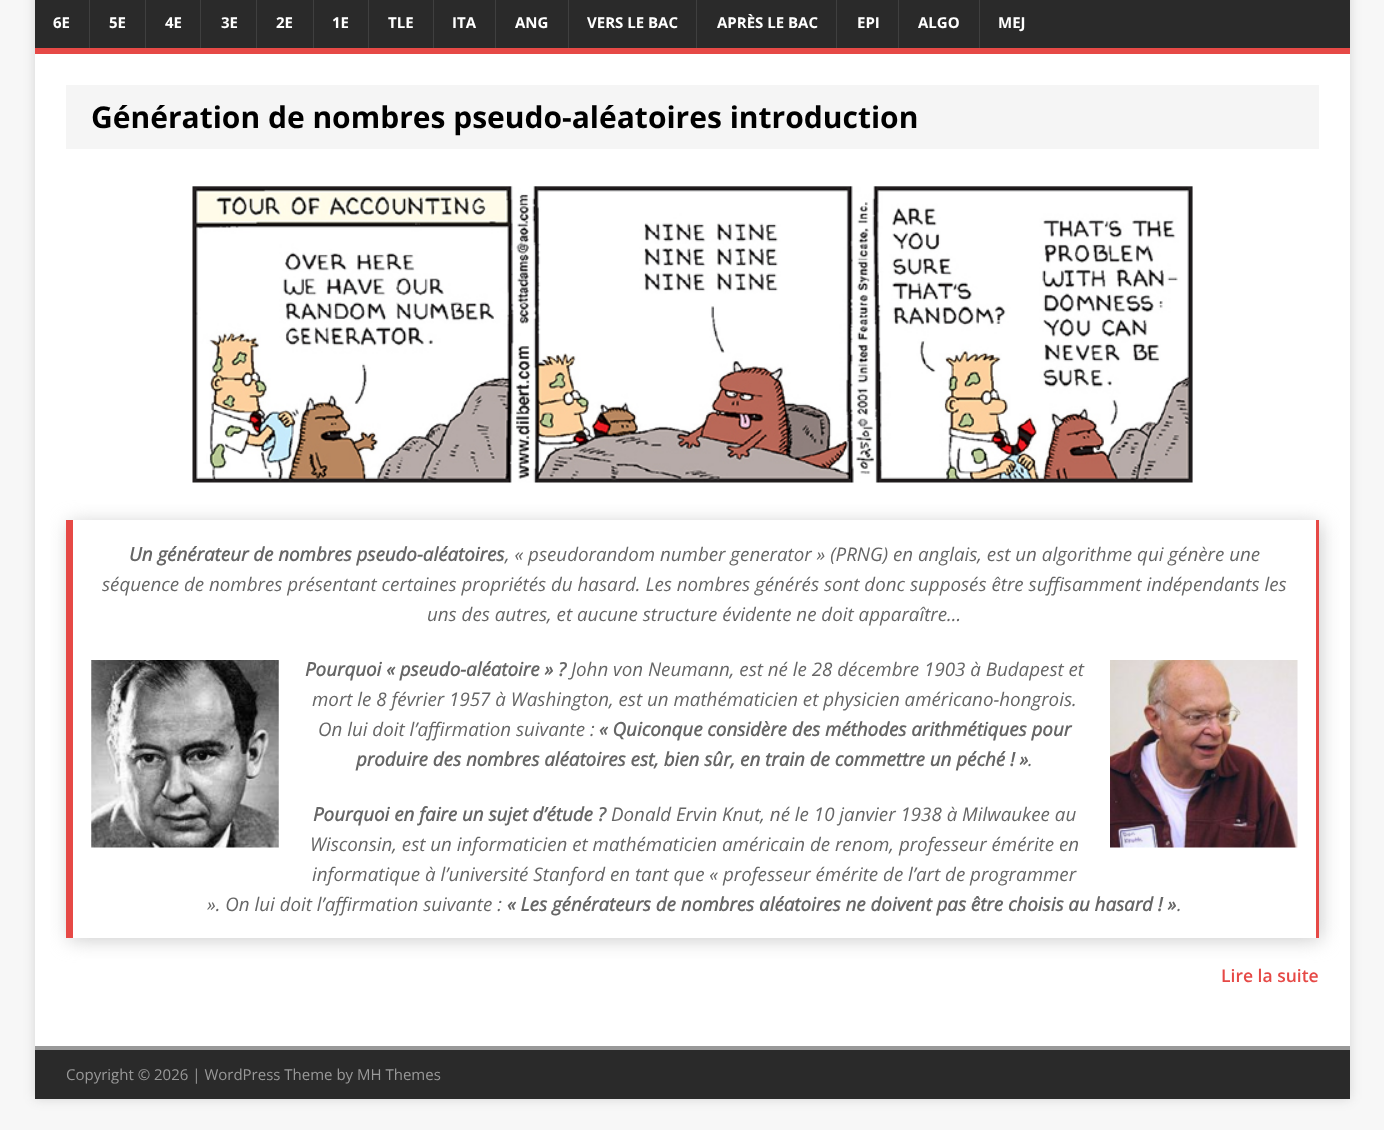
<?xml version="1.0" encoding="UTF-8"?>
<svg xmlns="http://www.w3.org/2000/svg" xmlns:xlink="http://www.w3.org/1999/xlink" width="1384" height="1130">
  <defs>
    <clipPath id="clip1"><path d="M 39 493 h 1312 v 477 h -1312 z m 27 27 h 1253 v 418 h -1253 z" clip-rule="evenodd" /></clipPath>
  </defs>
  <rect width="100%" height="100%" fill="#f7f7f7" />
  <rect x="35" y="-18" width="1315" height="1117" fill="#323232" fill-opacity="0.17" filter="blur(6px)" />
  <rect x="35" width="1315" height="48" fill="#2a2a2a" />
  <rect x="35" y="48" width="1315" height="6" fill="#e64946" />
  <rect x="89" width="1" height="48" fill="#3f3f3f" />
  <rect x="145" width="1" height="48" fill="#3f3f3f" />
  <rect x="200" width="1" height="48" fill="#3f3f3f" />
  <rect x="256" width="1" height="48" fill="#3f3f3f" />
  <rect x="313" width="1" height="48" fill="#3f3f3f" />
  <rect x="368" width="1" height="48" fill="#3f3f3f" />
  <rect x="433" width="1" height="48" fill="#3f3f3f" />
  <rect x="495" width="1" height="48" fill="#3f3f3f" />
  <rect x="568" width="1" height="48" fill="#3f3f3f" />
  <rect x="696" width="1" height="48" fill="#3f3f3f" />
  <rect x="836" width="1" height="48" fill="#3f3f3f" />
  <rect x="898" width="1" height="48" fill="#3f3f3f" />
  <rect x="979" width="1" height="48" fill="#3f3f3f" />
  <rect x="35" y="54" width="1315" height="992" fill="#ffffff" />
  <rect x="66" y="85" width="1253" height="64" fill="#f5f5f5" />
  <image x="192" y="186" width="1001" height="297" xlink:href="image1.png" />
  <g clip-path="url(#clip1)">
    <rect x="69" y="523" width="1252" height="417" fill="#cccccc" filter="blur(9.5px)" />
  </g>
  <rect x="1316" y="520" width="3" height="418" fill="#e64946" />
  <rect x="66" y="520" width="7" height="418" fill="#e64946" />
  <image x="91" y="660" width="188" height="188" xlink:href="image2.png" />
  <image x="1110" y="660" width="188" height="188" xlink:href="image3.png" />
  <rect x="35" y="1050" width="1315" height="49" fill="#2a2a2a" />
  <rect x="35" y="1046" width="1315" height="4" fill="#999999" />
  <text x="53" y="28" style="font-family: Open Sans; font-size: 15px; font-weight: bold; fill: #ffffff">6E</text>
  <text x="109" y="28" style="font-family: Open Sans; font-size: 15px; font-weight: bold; fill: #ffffff">5E</text>
  <text x="165" y="28" style="font-family: Open Sans; font-size: 15px; font-weight: bold; fill: #ffffff">4E</text>
  <text x="221" y="28" style="font-family: Open Sans; font-size: 15px; font-weight: bold; fill: #ffffff">3E</text>
  <text x="276" y="28" style="font-family: Open Sans; font-size: 15px; font-weight: bold; fill: #ffffff">2E</text>
  <text x="332" y="28" style="font-family: Open Sans; font-size: 15px; font-weight: bold; fill: #ffffff">1E</text>
  <text x="388" y="28" style="font-family: Open Sans; font-size: 15px; font-weight: bold; fill: #ffffff">TLE</text>
  <text x="452" y="28" style="font-family: Open Sans; font-size: 15px; font-weight: bold; fill: #ffffff">ITA</text>
  <text x="515" y="28" style="font-family: Open Sans; font-size: 15px; font-weight: bold; fill: #ffffff">ANG</text>
  <text x="587" y="28" style="font-family: Open Sans; font-size: 15px; font-weight: bold; fill: #ffffff">VERS LE BAC</text>
  <text x="717" y="28" style="font-family: Open Sans; font-size: 15px; font-weight: bold; fill: #ffffff">APRÈS LE BAC</text>
  <text x="857" y="28" style="font-family: Open Sans; font-size: 15px; font-weight: bold; fill: #ffffff">EPI</text>
  <text x="918" y="28" style="font-family: Open Sans; font-size: 15px; font-weight: bold; fill: #ffffff">ALGO</text>
  <text x="998" y="28" style="font-family: Open Sans; font-size: 15px; font-weight: bold; fill: #ffffff">MEJ</text>
  <text x="91" y="128" style="font-family: Open Sans; font-size: 30px; font-weight: bold; fill: #000000">Génération de nombres pseudo-aléatoires introduction</text>
  <text x="129" y="561" style="font-family: Open Sans; font-size: 18.75px; font-weight: bold; font-style: italic; fill: #666666">Un générateur de nombres pseudo-aléatoires</text>
  <text x="505" y="561" style="font-family: Open Sans; font-size: 18.75px; font-style: italic; fill: #666666">, « pseudorandom number generator » (PRNG) en anglais, est un algorithme qui génère une</text>
  <text x="102" y="591" style="font-family: Open Sans; font-size: 18.75px; font-style: italic; fill: #666666">séquence de nombres présentant certaines propriétés du hasard. Les nombres générés sont donc supposés être suffisamment indépendants les</text>
  <text x="427" y="621" style="font-family: Open Sans; font-size: 18.75px; font-style: italic; fill: #666666">uns des autres, et aucune structure évidente ne doit apparaître…</text>
  <text x="305" y="676" style="font-family: Open Sans; font-size: 18.75px; font-weight: bold; font-style: italic; fill: #666666">Pourquoi « pseudo-aléatoire » ?</text>
  <text x="571" y="676" style="font-family: Open Sans; font-size: 18.75px; font-style: italic; fill: #666666">John von Neumann, est né le 28 décembre 1903 à Budapest et</text>
  <text x="312" y="706" style="font-family: Open Sans; font-size: 18.75px; font-style: italic; fill: #666666">mort le 8 février 1957 à Washington, est un mathématicien et physicien américano-hongrois.</text>
  <text x="318" y="736" style="font-family: Open Sans; font-size: 18.75px; font-style: italic; fill: #666666">On lui doit l’affirmation suivante :</text>
  <text x="599" y="736" style="font-family: Open Sans; font-size: 18.75px; font-weight: bold; font-style: italic; fill: #666666">« Quiconque considère des méthodes arithmétiques pour</text>
  <text x="356" y="766" style="font-family: Open Sans; font-size: 18.75px; font-weight: bold; font-style: italic; fill: #666666">produire des nombres aléatoires est, bien sûr, en train de commettre un péché ! »</text>
  <text x="1028" y="766" style="font-family: Open Sans; font-size: 18.75px; font-style: italic; fill: #666666">.</text>
  <text x="313" y="821" style="font-family: Open Sans; font-size: 18.75px; font-weight: bold; font-style: italic; fill: #666666">Pourquoi en faire un sujet d’étude ?</text>
  <text x="611" y="821" style="font-family: Open Sans; font-size: 18.75px; font-style: italic; fill: #666666">Donald Ervin Knut, né le 10 janvier 1938 à Milwaukee au</text>
  <text x="310" y="851" style="font-family: Open Sans; font-size: 18.75px; font-style: italic; fill: #666666">Wisconsin, est un informaticien et mathématicien américain de renom, professeur émérite en</text>
  <text x="312" y="881" style="font-family: Open Sans; font-size: 18.75px; font-style: italic; fill: #666666">informatique à l’université Stanford en tant que « professeur émérite de l’art de programmer</text>
  <text x="207" y="911" style="font-family: Open Sans; font-size: 18.75px; font-style: italic; fill: #666666">». On lui doit l’affirmation suivante :</text>
  <text x="507" y="911" style="font-family: Open Sans; font-size: 18.75px; font-weight: bold; font-style: italic; fill: #666666">« Les générateurs de nombres aléatoires ne doivent pas être choisis au hasard ! »</text>
  <text x="1177" y="911" style="font-family: Open Sans; font-size: 18.75px; font-style: italic; fill: #666666">.</text>
  <text x="1221" y="982" style="font-family: Open Sans; font-size: 17.5px; font-weight: 600; fill: #e64946">Lire la suite</text>
  <text x="66" y="1080" style="font-family: Open Sans; font-size: 15px; fill: #999999">Copyright © 2026 | WordPress Theme by MH Themes</text>
</svg>
